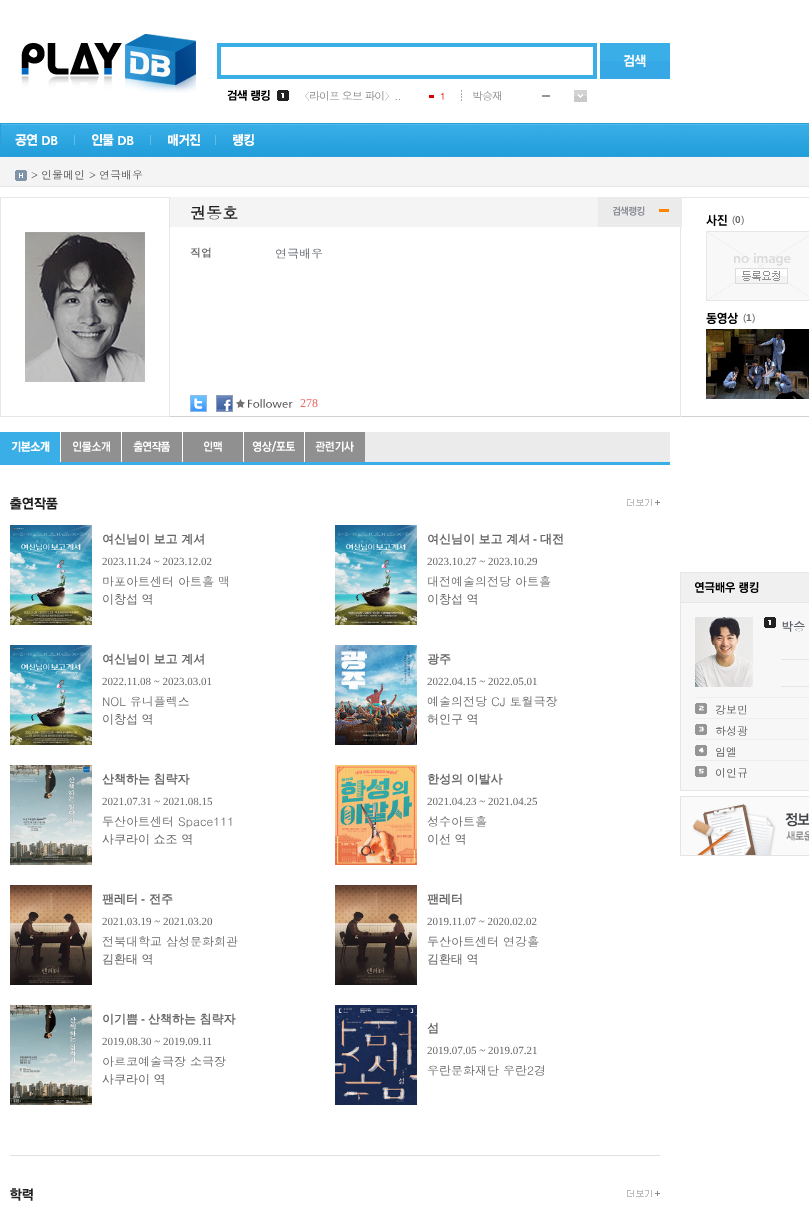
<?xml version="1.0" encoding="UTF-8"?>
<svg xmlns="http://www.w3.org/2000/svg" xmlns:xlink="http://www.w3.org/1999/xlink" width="809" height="1210">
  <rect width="100%" height="100%" fill="#ffffff" />
  <image x="21" y="34" width="175" height="59" xlink:href="image1.png" />
  <rect x="219" y="45" width="376" height="32" fill="none" stroke="#39aee7" stroke-width="4" />
  <image x="600" y="43" width="70" height="36" xlink:href="image2.png" />
  <image x="227" y="90" width="43" height="11" xlink:href="image3.png" />
  <image x="277" y="90" width="12" height="11" xlink:href="image4.png" />
  <rect x="429" y="95" width="5" height="3" fill="#de0000" />
  <image x="461" y="90" width="1" height="11" xlink:href="image5.png" />
  <rect x="542" y="95" width="8" height="2" fill="#959595" />
  <image x="574" y="90" width="13" height="12" xlink:href="image6.png" />
  <image x="0" y="123" width="809" height="34" xlink:href="image7.png" />
  <image x="15" y="134" width="60" height="12" xlink:href="image8.png" />
  <image x="92" y="134" width="59" height="12" xlink:href="image9.png" />
  <image x="168" y="134" width="48" height="12" xlink:href="image10.png" />
  <image x="233" y="134" width="21" height="12" xlink:href="image11.png" />
  <rect y="157" width="809" height="29" fill="#f4f4f4" />
  <rect y="186" width="809" height="1" fill="#e6e6e6" />
  <image x="15" y="170" width="12" height="11" xlink:href="image12.png" />
  <rect x="170" y="416" width="639" height="1" fill="#d1d1d1" />
  <rect x="0.5" y="197.5" width="169" height="219" fill="none" stroke="#e6e6e6" />
  <image x="25" y="232" width="120" height="150" xlink:href="image13.png" />
  <rect x="170" y="197" width="428" height="30" fill="#f4f4f4" />
  <rect x="680" y="197" width="129" height="1" fill="#e6e6e6" />
  <rect x="598" y="197" width="84" height="30" fill="#ebebeb" />
  <image x="613" y="206" width="32" height="10" xlink:href="image14.png" />
  <rect x="659" y="209" width="10" height="3" fill="#ff8400" />
  <image x="190" y="395" width="17" height="17" xlink:href="image15.png" />
  <image x="216" y="395" width="17" height="17" xlink:href="image16.png" />
  <image x="236" y="399" width="57" height="9" xlink:href="image17.png" />
  <rect x="680" y="227" width="1" height="190" fill="#e6e6e6" />
  <image x="706" y="214" width="21" height="12" xlink:href="image18.png" />
  <image x="706" y="231" width="103" height="70" xlink:href="image19.png" />
  <image x="706" y="312" width="32" height="12" xlink:href="image20.png" />
  <image x="706" y="329" width="103" height="70" xlink:href="image21.png" />
  <rect x="365" y="432" width="305" height="30" fill="#ebebeb" />
  <rect y="462" width="670" height="3" fill="#39aee7" />
  <image x="0" y="432" width="60" height="30" xlink:href="image22.png" />
  <image x="60" y="432" width="61" height="30" xlink:href="image23.png" />
  <image x="121" y="432" width="61" height="30" xlink:href="image24.png" />
  <image x="182" y="432" width="61" height="30" xlink:href="image25.png" />
  <image x="243" y="432" width="61" height="30" xlink:href="image26.png" />
  <image x="304" y="432" width="61" height="30" xlink:href="image27.png" />
  <rect x="10" y="1155" width="650" height="1" fill="#e1e1e1" />
  <image x="10" y="497" width="48" height="13" xlink:href="image28.png" />
  <image x="627" y="499" width="33" height="7" xlink:href="image29.png" />
  <image x="10" y="525" width="82" height="100" xlink:href="image30.png" />
  <image x="335" y="525" width="82" height="100" xlink:href="image31.png" />
  <image x="10" y="645" width="82" height="100" xlink:href="image32.png" />
  <image x="335" y="645" width="82" height="100" xlink:href="image33.png" />
  <image x="10" y="765" width="82" height="100" xlink:href="image34.png" />
  <image x="335" y="765" width="82" height="100" xlink:href="image35.png" />
  <image x="10" y="885" width="82" height="100" xlink:href="image36.png" />
  <image x="335" y="885" width="82" height="100" xlink:href="image37.png" />
  <image x="10" y="1005" width="82" height="100" xlink:href="image38.png" />
  <image x="335" y="1005" width="82" height="100" xlink:href="image39.png" />
  <image x="10" y="1188" width="23" height="13" xlink:href="image40.png" />
  <image x="627" y="1190" width="33" height="7" xlink:href="image29.png" />
  <rect x="681" y="603" width="128" height="187" fill="#f7f7f7" />
  <rect x="680.5" y="572.5" width="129" height="218" fill="none" stroke="#e6e6e6" />
  <rect x="681" y="573" width="128" height="29" fill="#f0f0f0" />
  <rect x="681" y="602" width="128" height="1" fill="#e6e6e6" />
  <image x="695" y="582" width="64" height="11" xlink:href="image41.png" />
  <image x="695" y="617" width="58" height="70" xlink:href="image42.png" />
  <image x="764" y="617" width="12" height="11" xlink:href="image43.png" />
  <rect x="781" y="659" width="28" height="1" fill="#e6e6e6" />
  <rect x="781" y="686" width="28" height="1" fill="#e6e6e6" />
  <rect x="695" y="697" width="114" height="1" fill="#eeeeee" />
  <image x="695" y="703" width="12" height="11" xlink:href="image44.png" />
  <rect x="695" y="718" width="114" height="1" fill="#eeeeee" />
  <image x="695" y="724" width="12" height="11" xlink:href="image45.png" />
  <rect x="695" y="739" width="114" height="1" fill="#eeeeee" />
  <image x="695" y="745" width="12" height="11" xlink:href="image46.png" />
  <rect x="695" y="760" width="114" height="1" fill="#eeeeee" />
  <image x="695" y="766" width="12" height="11" xlink:href="image47.png" />
  <image x="680" y="796" width="129" height="60" xlink:href="image48.png" />
  <text x="299" y="100" style="font-family: Dotum; font-size: 11px; letter-spacing: -1px; fill: #888888">〈라이프 오브 파이〉..</text>
  <text x="440" y="100" style="font-family: Dotum; font-size: 10px; fill: #de0000">1</text>
  <text x="472" y="100" style="font-family: Dotum; font-size: 11px; letter-spacing: -1px; fill: #888888">박승재</text>
  <text x="31" y="179" style="font-family: Dotum; font-size: 11px; fill: #666666">&gt;</text>
  <text x="41" y="179" style="font-family: Dotum; font-size: 11px; fill: #4f4f4f">인물메인</text>
  <text x="89" y="179" style="font-family: Dotum; font-size: 11px; fill: #666666">&gt;</text>
  <text x="99" y="179" style="font-family: Dotum; font-size: 11px; fill: #4f4f4f">연극배우</text>
  <text x="190" y="219" style="font-family: Dotum; font-size: 16px; font-weight: bold; fill: #222222">권동호</text>
  <text x="190" y="257" style="font-family: Dotum; font-size: 11px; font-weight: bold; fill: #666666">직업</text>
  <text x="275" y="258" style="font-family: Dotum; font-size: 12px; fill: #5a5c67">연극배우</text>
  <text x="300" y="407" style="font-family: Liberation Serif; font-size: 12px; fill: #f06666">278</text>
  <text x="732" y="223" style="font-family: Liberation Sans; font-size: 10px; fill: #666666">(</text>
  <text x="735" y="223" style="font-family: Liberation Sans; font-size: 10px; font-weight: bold; fill: #666666">0</text>
  <text x="741" y="223" style="font-family: Liberation Sans; font-size: 10px; fill: #666666">)</text>
  <text x="743" y="321" style="font-family: Liberation Sans; font-size: 10px; fill: #666666">(</text>
  <text x="746" y="321" style="font-family: Liberation Sans; font-size: 10px; font-weight: bold; fill: #666666">1</text>
  <text x="752" y="321" style="font-family: Liberation Sans; font-size: 10px; fill: #666666">)</text>
  <text x="102" y="543" style="font-family: WenQuanYi Zen Hei; font-size: 12px; font-weight: bold; fill: #666666">여신님이 보고 계셔</text>
  <text x="102" y="565" style="font-family: Liberation Serif; font-size: 11px; fill: #666666">2023.11.24 ~ 2023.12.02</text>
  <text x="102" y="586" style="font-family: Dotum; font-size: 12px; fill: #666666">마포아트센터 아트홀 맥</text>
  <text x="102" y="603" style="font-family: WenQuanYi Zen Hei; font-size: 12px; font-weight: 500; fill: #666666">이창섭 역</text>
  <text x="427" y="543" style="font-family: WenQuanYi Zen Hei; font-size: 12px; font-weight: bold; fill: #666666">여신님이 보고 계셔</text>
  <text x="533" y="543" style="font-family: Liberation Sans; font-size: 12px; font-weight: bold; fill: #666666">-</text>
  <text x="540" y="543" style="font-family: WenQuanYi Zen Hei; font-size: 12px; font-weight: bold; fill: #666666">대전</text>
  <text x="427" y="565" style="font-family: Liberation Serif; font-size: 11px; fill: #666666">2023.10.27 ~ 2023.10.29</text>
  <text x="427" y="586" style="font-family: Dotum; font-size: 12px; fill: #666666">대전예술의전당 아트홀</text>
  <text x="427" y="603" style="font-family: WenQuanYi Zen Hei; font-size: 12px; font-weight: 500; fill: #666666">이창섭 역</text>
  <text x="102" y="663" style="font-family: WenQuanYi Zen Hei; font-size: 12px; font-weight: bold; fill: #666666">여신님이 보고 계셔</text>
  <text x="102" y="685" style="font-family: Liberation Serif; font-size: 11px; fill: #666666">2022.11.08 ~ 2023.03.01</text>
  <text x="102" y="706" style="font-family: Dotum; font-size: 12px; fill: #666666">NOL 유니플렉스</text>
  <text x="102" y="723" style="font-family: WenQuanYi Zen Hei; font-size: 12px; font-weight: 500; fill: #666666">이창섭 역</text>
  <text x="427" y="663" style="font-family: WenQuanYi Zen Hei; font-size: 12px; font-weight: bold; fill: #666666">광주</text>
  <text x="427" y="685" style="font-family: Liberation Serif; font-size: 11px; fill: #666666">2022.04.15 ~ 2022.05.01</text>
  <text x="427" y="706" style="font-family: Dotum; font-size: 12px; fill: #666666">예술의전당 CJ 토월극장</text>
  <text x="427" y="723" style="font-family: WenQuanYi Zen Hei; font-size: 12px; font-weight: 500; fill: #666666">허인구 역</text>
  <text x="102" y="783" style="font-family: WenQuanYi Zen Hei; font-size: 12px; font-weight: bold; fill: #666666">산책하는 침략자</text>
  <text x="102" y="805" style="font-family: Liberation Serif; font-size: 11px; fill: #666666">2021.07.31 ~ 2021.08.15</text>
  <text x="102" y="826" style="font-family: Dotum; font-size: 12px; fill: #666666">두산아트센터 Space111</text>
  <text x="102" y="843" style="font-family: WenQuanYi Zen Hei; font-size: 12px; font-weight: 500; fill: #666666">사쿠라이 쇼조 역</text>
  <text x="427" y="783" style="font-family: WenQuanYi Zen Hei; font-size: 12px; font-weight: bold; fill: #666666">한성의 이발사</text>
  <text x="427" y="805" style="font-family: Liberation Serif; font-size: 11px; fill: #666666">2021.04.23 ~ 2021.04.25</text>
  <text x="427" y="826" style="font-family: Dotum; font-size: 12px; fill: #666666">성수아트홀</text>
  <text x="427" y="843" style="font-family: WenQuanYi Zen Hei; font-size: 12px; font-weight: 500; fill: #666666">이선 역</text>
  <text x="102" y="903" style="font-family: WenQuanYi Zen Hei; font-size: 12px; font-weight: bold; fill: #666666">팬레터</text>
  <text x="141" y="903" style="font-family: Liberation Sans; font-size: 12px; font-weight: bold; fill: #666666">-</text>
  <text x="149" y="903" style="font-family: WenQuanYi Zen Hei; font-size: 12px; font-weight: bold; fill: #666666">전주</text>
  <text x="102" y="925" style="font-family: Liberation Serif; font-size: 11px; fill: #666666">2021.03.19 ~ 2021.03.20</text>
  <text x="102" y="946" style="font-family: Dotum; font-size: 12px; fill: #666666">전북대학교 삼성문화회관</text>
  <text x="102" y="963" style="font-family: WenQuanYi Zen Hei; font-size: 12px; font-weight: 500; fill: #666666">김환태 역</text>
  <text x="427" y="903" style="font-family: WenQuanYi Zen Hei; font-size: 12px; font-weight: bold; fill: #666666">팬레터</text>
  <text x="427" y="925" style="font-family: Liberation Serif; font-size: 11px; fill: #666666">2019.11.07 ~ 2020.02.02</text>
  <text x="427" y="946" style="font-family: Dotum; font-size: 12px; fill: #666666">두산아트센터 연강홀</text>
  <text x="427" y="963" style="font-family: WenQuanYi Zen Hei; font-size: 12px; font-weight: 500; fill: #666666">김환태 역</text>
  <text x="102" y="1023" style="font-family: WenQuanYi Zen Hei; font-size: 12px; font-weight: bold; fill: #666666">이기쁨</text>
  <text x="141" y="1023" style="font-family: Liberation Sans; font-size: 12px; font-weight: bold; fill: #666666">-</text>
  <text x="148" y="1023" style="font-family: WenQuanYi Zen Hei; font-size: 12px; font-weight: bold; fill: #666666">산책하는 침략자</text>
  <text x="102" y="1045" style="font-family: Liberation Serif; font-size: 11px; fill: #666666">2019.08.30 ~ 2019.09.11</text>
  <text x="102" y="1066" style="font-family: Dotum; font-size: 12px; fill: #666666">아르코예술극장 소극장</text>
  <text x="102" y="1083" style="font-family: WenQuanYi Zen Hei; font-size: 12px; font-weight: 500; fill: #666666">사쿠라이 역</text>
  <text x="427" y="1032" style="font-family: WenQuanYi Zen Hei; font-size: 12px; font-weight: bold; fill: #666666">섬</text>
  <text x="427" y="1054" style="font-family: Liberation Serif; font-size: 11px; fill: #666666">2019.07.05 ~ 2019.07.21</text>
  <text x="427" y="1075" style="font-family: Dotum; font-size: 12px; fill: #666666">우란문화재단 우란2경</text>
  <text x="781" y="631" style="font-family: Dotum; font-size: 12px; font-weight: bold; fill: #5a5c67">박승</text>
  <text x="715" y="714" style="font-family: Dotum; font-size: 11px; fill: #4f4f4f">강보민</text>
  <text x="715" y="735" style="font-family: Dotum; font-size: 11px; fill: #4f4f4f">하성광</text>
  <text x="715" y="756" style="font-family: Dotum; font-size: 11px; fill: #4f4f4f">임엘</text>
  <text x="715" y="777" style="font-family: Dotum; font-size: 11px; fill: #4f4f4f">이인규</text>
</svg>
